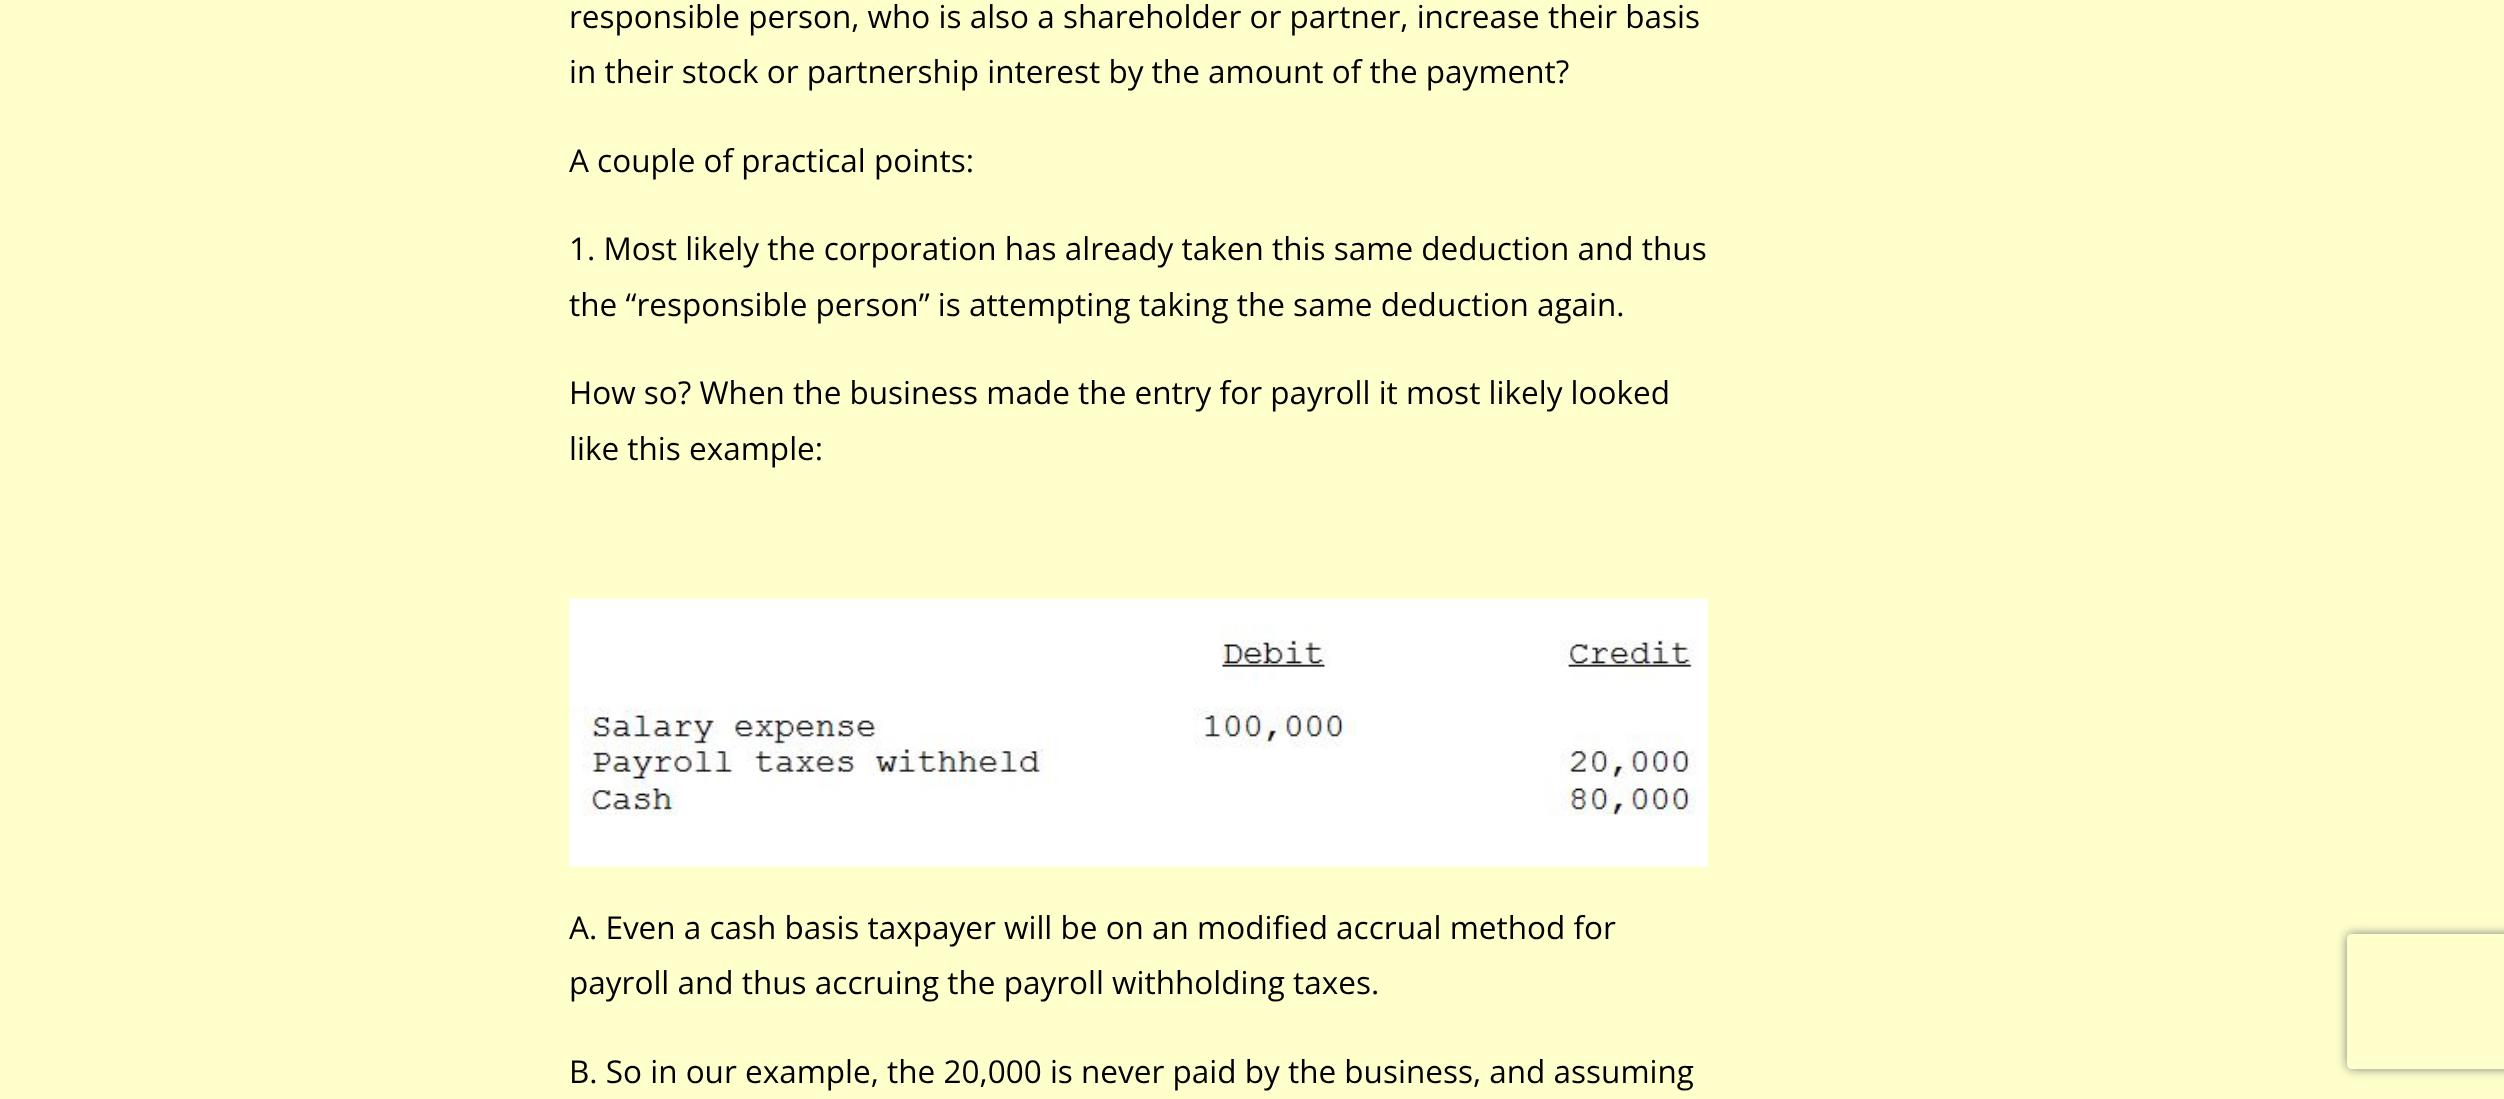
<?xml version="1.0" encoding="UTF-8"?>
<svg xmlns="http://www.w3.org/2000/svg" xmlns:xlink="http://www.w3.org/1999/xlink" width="2504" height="1099">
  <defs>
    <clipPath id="clip1"><path d="M 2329 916 h 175 v 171 h -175 z m 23 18 h 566 c 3 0 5 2 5 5 v 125 c 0 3 -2 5 -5 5 h -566 c -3 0 -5 -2 -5 -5 v -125 c 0 -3 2 -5 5 -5 z" clip-rule="evenodd" /></clipPath>
  </defs>
  <rect width="100%" height="100%" fill="#ffffcc" />
  <image x="569" y="598" width="1139" height="269" xlink:href="image1.png" />
  <g clip-path="url(#clip1)">
    <rect x="2347" y="934" width="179" height="135" rx="5" fill="#808080" filter="blur(5.5px)" />
  </g>
  <text x="569" y="28" style="font-family: Open Sans; font-size: 31.5px; fill: #000000">responsible person, who is also a shareholder or partner, increase their basis</text>
  <text x="569" y="83" style="font-family: Open Sans; font-size: 31.5px; fill: #000000">in their stock or partnership interest by the amount of the payment?</text>
  <text x="569" y="172" style="font-family: Open Sans; font-size: 31.5px; fill: #000000">A couple of practical points:</text>
  <text x="569" y="260" style="font-family: Open Sans; font-size: 31.5px; fill: #000000">1. Most likely the corporation has already taken this same deduction and thus</text>
  <text x="569" y="316" style="font-family: Open Sans; font-size: 31.5px; fill: #000000">the “responsible person” is attempting taking the same deduction again.</text>
  <text x="569" y="404" style="font-family: Open Sans; font-size: 31.5px; fill: #000000">How so? When the business made the entry for payroll it most likely looked</text>
  <text x="569" y="460" style="font-family: Open Sans; font-size: 31.5px; fill: #000000">like this example:</text>
  <text x="569" y="939" style="font-family: Open Sans; font-size: 31.5px; fill: #000000">A. Even a cash basis taxpayer will be on an modified accrual method for</text>
  <text x="569" y="994" style="font-family: Open Sans; font-size: 31.5px; fill: #000000">payroll and thus accruing the payroll withholding taxes.</text>
  <text x="569" y="1083" style="font-family: Open Sans; font-size: 31.5px; fill: #000000">B. So in our example, the 20,000 is never paid by the business, and assuming</text>
</svg>
